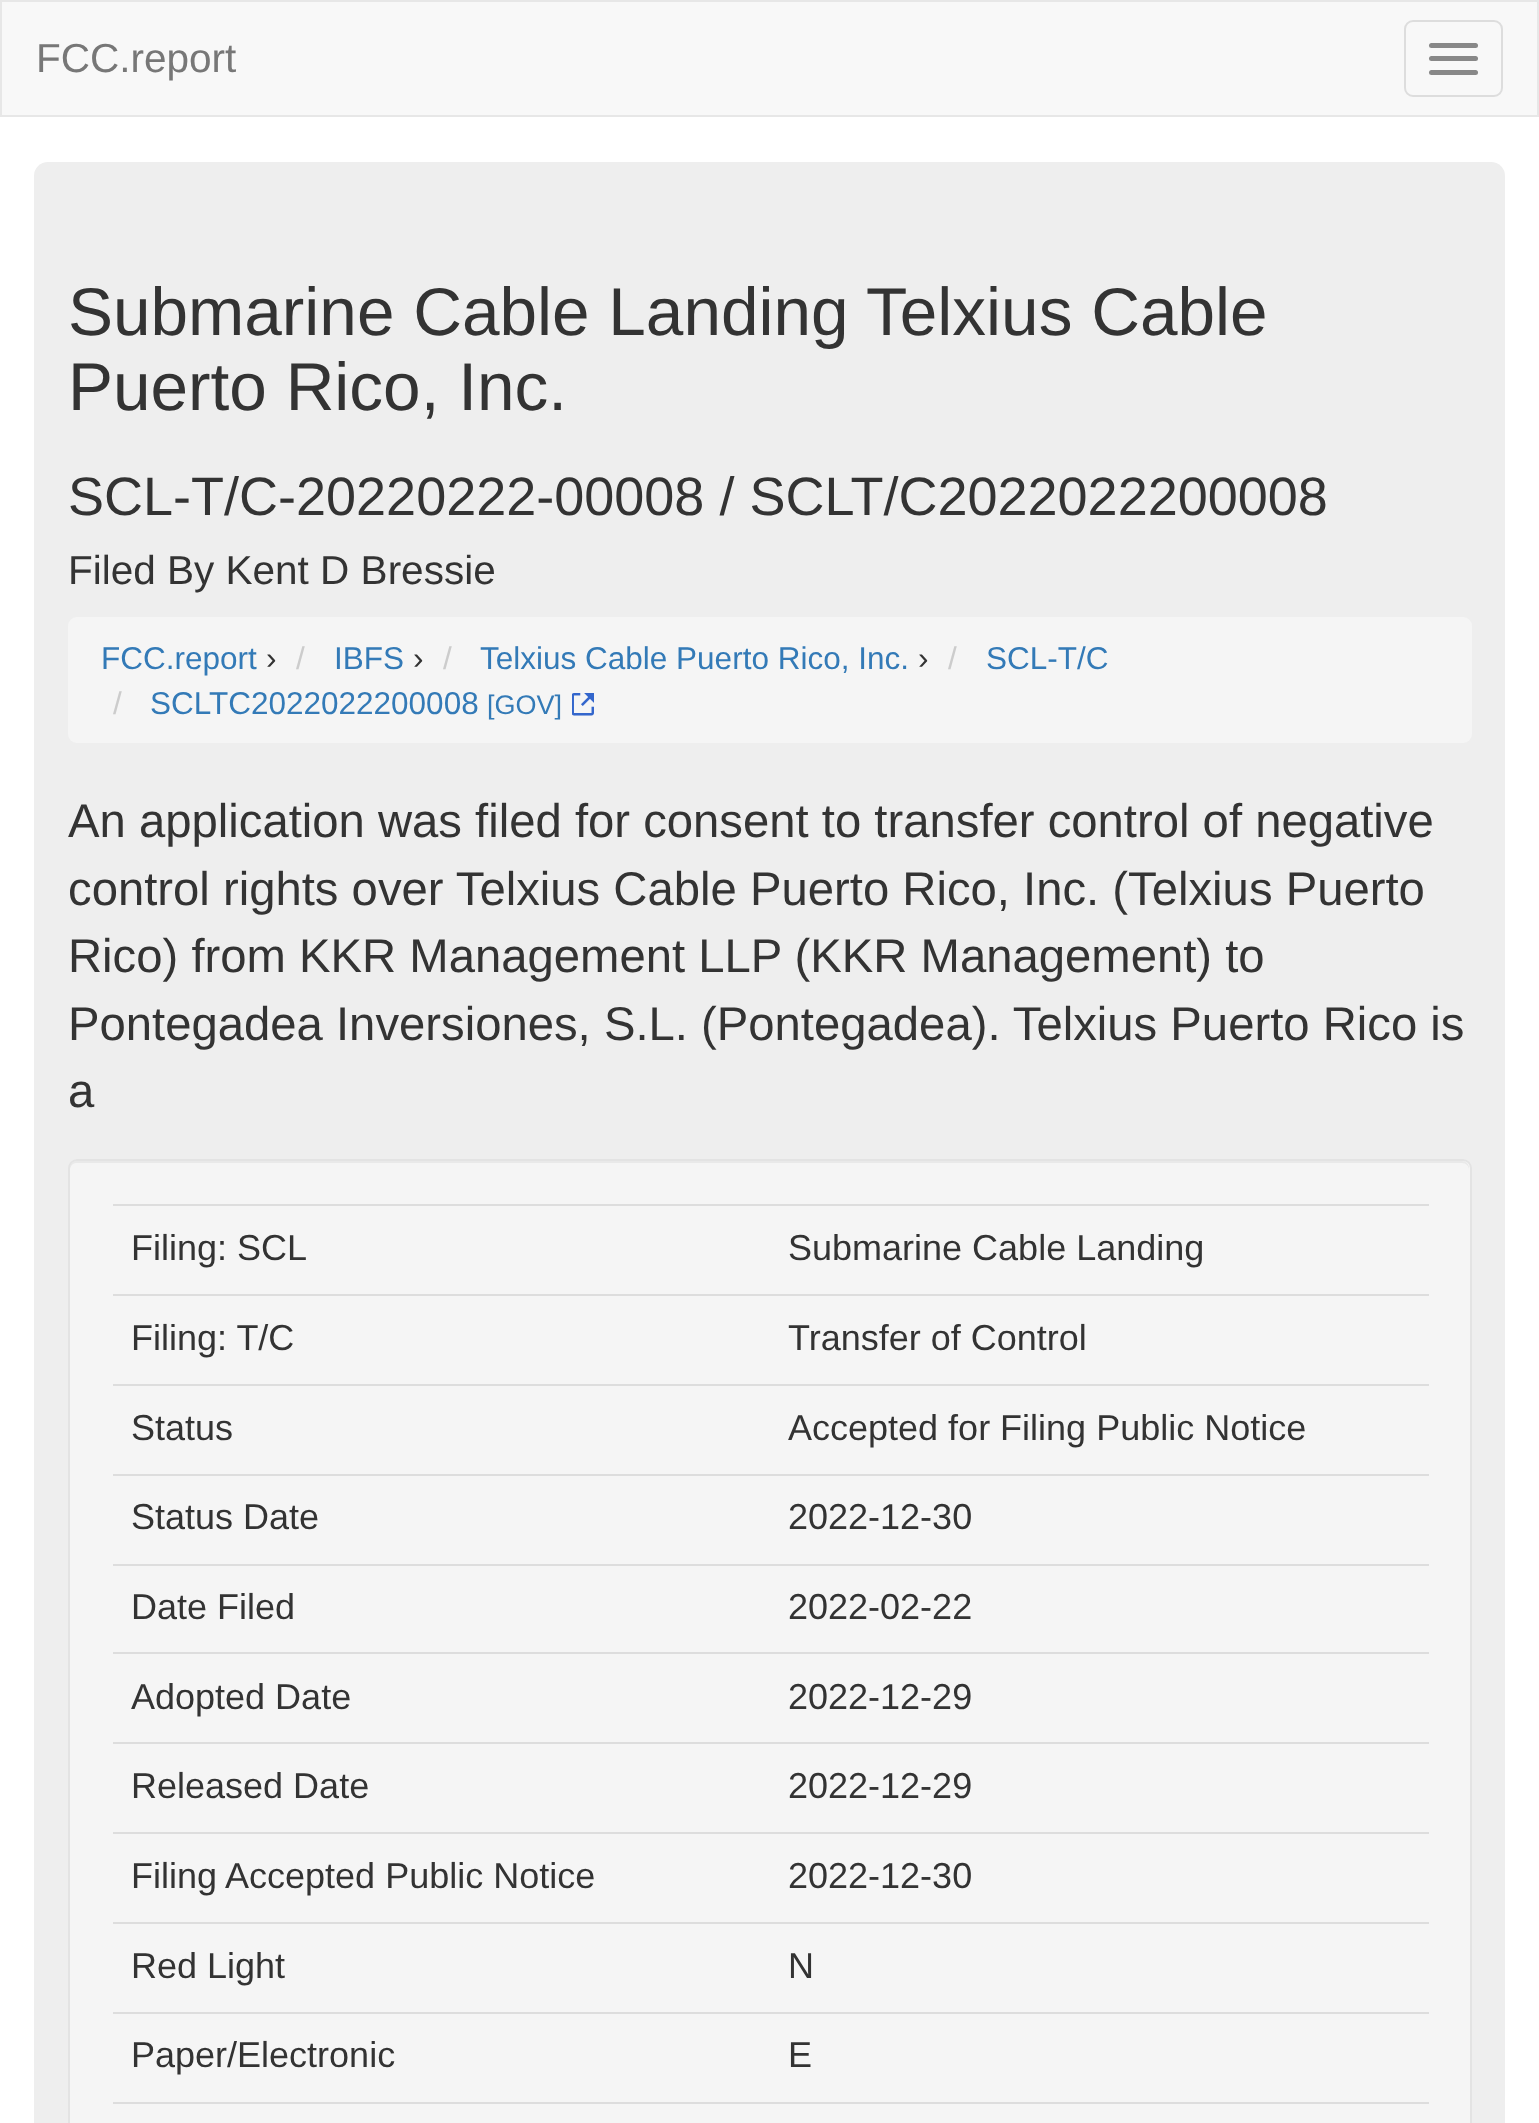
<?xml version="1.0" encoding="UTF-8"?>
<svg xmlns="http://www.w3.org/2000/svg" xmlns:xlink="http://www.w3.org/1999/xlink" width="1539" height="2123">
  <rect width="100%" height="100%" fill="#ffffff" />
  <rect x="1" y="1" width="1537" height="115" fill="#f8f8f8" stroke="#e7e7e7" stroke-width="2" />
  <rect x="1405" y="21" width="97" height="75" rx="8" fill="none" stroke="#dddddd" stroke-width="2" />
  <rect x="1429" y="43" width="49" height="5" rx="2.5" fill="#888888" />
  <rect x="1429" y="56" width="49" height="5" rx="2.5" fill="#888888" />
  <rect x="1429" y="70" width="49" height="5" rx="2.5" fill="#888888" />
  <rect x="34" y="162" width="1471" height="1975" rx="14" fill="#eeeeee" />
  <rect x="68" y="617" width="1404" height="126" rx="9" fill="#f5f5f5" />
  <image x="572" y="693" width="22" height="23" xlink:href="image1.png" />
  <rect x="68" y="1159" width="1404" height="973" rx="9" fill="#f5f5f5" />
  <path d="M 76 1163 h 1386 c 4 0 7 3 7 7 v -2 c 0 -4 -3 -7 -7 -7 h -1385 c -4 0 -7 3 -7 7 v 2 c 0 -4 3 -7 6 -7 z" fill="#e9e9e9" />
  <rect x="69" y="1160" width="1402" height="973" rx="8" fill="none" stroke="#e3e3e3" stroke-width="2" />
  <rect x="113" y="1204" width="1316" height="2" fill="#dddddd" />
  <rect x="113" y="1294" width="1316" height="2" fill="#dddddd" />
  <rect x="113" y="1384" width="1316" height="2" fill="#dddddd" />
  <rect x="113" y="1474" width="1316" height="2" fill="#dddddd" />
  <rect x="113" y="1564" width="1316" height="2" fill="#dddddd" />
  <rect x="113" y="1652" width="1316" height="2" fill="#dddddd" />
  <rect x="113" y="1742" width="1316" height="2" fill="#dddddd" />
  <rect x="113" y="1832" width="1316" height="2" fill="#dddddd" />
  <rect x="113" y="1922" width="1316" height="2" fill="#dddddd" />
  <rect x="113" y="2012" width="1316" height="2" fill="#dddddd" />
  <rect x="113" y="2102" width="1316" height="2" fill="#dddddd" />
  <text x="36" y="72" style="font-family: Liberation Sans; font-size: 40.5px; fill: #777777">FCC.report</text>
  <text x="68" y="335" style="font-family: Liberation Sans; font-size: 67.5px; fill: #333333">Submarine Cable Landing Telxius Cable</text>
  <text x="68" y="410" style="font-family: Liberation Sans; font-size: 67.5px; fill: #333333">Puerto Rico, Inc.</text>
  <text x="68" y="515" style="font-family: Liberation Sans; font-size: 54px; fill: #333333">SCL-T/C-20220222-00008 / SCLT/C2022022200008</text>
  <text x="68" y="584" style="font-family: Liberation Sans; font-size: 40.5px; fill: #333333">Filed By Kent D Bressie</text>
  <text x="101" y="669" style="font-family: Liberation Sans; font-size: 31.5px; fill: #337ab7">FCC.report</text>
  <text x="266" y="669" style="font-family: Liberation Sans; font-size: 31.5px; fill: #333333">›</text>
  <text x="296" y="669" style="font-family: Liberation Sans; font-size: 31.5px; fill: #cccccc">/</text>
  <text x="334" y="669" style="font-family: Liberation Sans; font-size: 31.5px; fill: #337ab7">IBFS</text>
  <text x="413" y="669" style="font-family: Liberation Sans; font-size: 31.5px; fill: #333333">›</text>
  <text x="443" y="669" style="font-family: Liberation Sans; font-size: 31.5px; fill: #cccccc">/</text>
  <text x="480" y="669" style="font-family: Liberation Sans; font-size: 31.5px; fill: #337ab7">Telxius Cable Puerto Rico, Inc.</text>
  <text x="918" y="669" style="font-family: Liberation Sans; font-size: 31.5px; fill: #333333">›</text>
  <text x="948" y="669" style="font-family: Liberation Sans; font-size: 31.5px; fill: #cccccc">/</text>
  <text x="986" y="669" style="font-family: Liberation Sans; font-size: 31.5px; fill: #337ab7">SCL-T/C</text>
  <text x="113" y="714" style="font-family: Liberation Sans; font-size: 31.5px; fill: #cccccc">/</text>
  <text x="150" y="714" style="font-family: Liberation Sans; font-size: 31.5px; fill: #337ab7">SCLTC2022022200008</text>
  <text x="487" y="714" style="font-family: Liberation Sans; font-size: 27px; fill: #337ab7">[GOV]</text>
  <text x="68" y="837" style="font-family: Liberation Sans; font-size: 47.25px; fill: #333333">An application was filed for consent to transfer control of negative</text>
  <text x="68" y="905" style="font-family: Liberation Sans; font-size: 47.25px; fill: #333333">control rights over Telxius Cable Puerto Rico, Inc. (Telxius Puerto</text>
  <text x="68" y="972" style="font-family: Liberation Sans; font-size: 47.25px; fill: #333333">Rico) from KKR Management LLP (KKR Management) to</text>
  <text x="68" y="1040" style="font-family: Liberation Sans; font-size: 47.25px; fill: #333333">Pontegadea Inversiones, S.L. (Pontegadea). Telxius Puerto Rico is</text>
  <text x="68" y="1107" style="font-family: Liberation Sans; font-size: 47.25px; fill: #333333">a</text>
  <text x="131" y="1260" style="font-family: Liberation Sans; font-size: 36px; fill: #333333">Filing: SCL</text>
  <text x="788" y="1260" style="font-family: Liberation Sans; font-size: 36px; fill: #333333">Submarine Cable Landing</text>
  <text x="131" y="1350" style="font-family: Liberation Sans; font-size: 36px; fill: #333333">Filing: T/C</text>
  <text x="788" y="1350" style="font-family: Liberation Sans; font-size: 36px; fill: #333333">Transfer of Control</text>
  <text x="131" y="1440" style="font-family: Liberation Sans; font-size: 36px; fill: #333333">Status</text>
  <text x="788" y="1440" style="font-family: Liberation Sans; font-size: 36px; fill: #333333">Accepted for Filing Public Notice</text>
  <text x="131" y="1529" style="font-family: Liberation Sans; font-size: 36px; fill: #333333">Status Date</text>
  <text x="788" y="1529" style="font-family: Liberation Sans; font-size: 36px; fill: #333333">2022-12-30</text>
  <text x="131" y="1619" style="font-family: Liberation Sans; font-size: 36px; fill: #333333">Date Filed</text>
  <text x="788" y="1619" style="font-family: Liberation Sans; font-size: 36px; fill: #333333">2022-02-22</text>
  <text x="131" y="1709" style="font-family: Liberation Sans; font-size: 36px; fill: #333333">Adopted Date</text>
  <text x="788" y="1709" style="font-family: Liberation Sans; font-size: 36px; fill: #333333">2022-12-29</text>
  <text x="131" y="1798" style="font-family: Liberation Sans; font-size: 36px; fill: #333333">Released Date</text>
  <text x="788" y="1798" style="font-family: Liberation Sans; font-size: 36px; fill: #333333">2022-12-29</text>
  <text x="131" y="1888" style="font-family: Liberation Sans; font-size: 36px; fill: #333333">Filing Accepted Public Notice</text>
  <text x="788" y="1888" style="font-family: Liberation Sans; font-size: 36px; fill: #333333">2022-12-30</text>
  <text x="131" y="1978" style="font-family: Liberation Sans; font-size: 36px; fill: #333333">Red Light</text>
  <text x="788" y="1978" style="font-family: Liberation Sans; font-size: 36px; fill: #333333">N</text>
  <text x="131" y="2067" style="font-family: Liberation Sans; font-size: 36px; fill: #333333">Paper/Electronic</text>
  <text x="788" y="2067" style="font-family: Liberation Sans; font-size: 36px; fill: #333333">E</text>
</svg>
